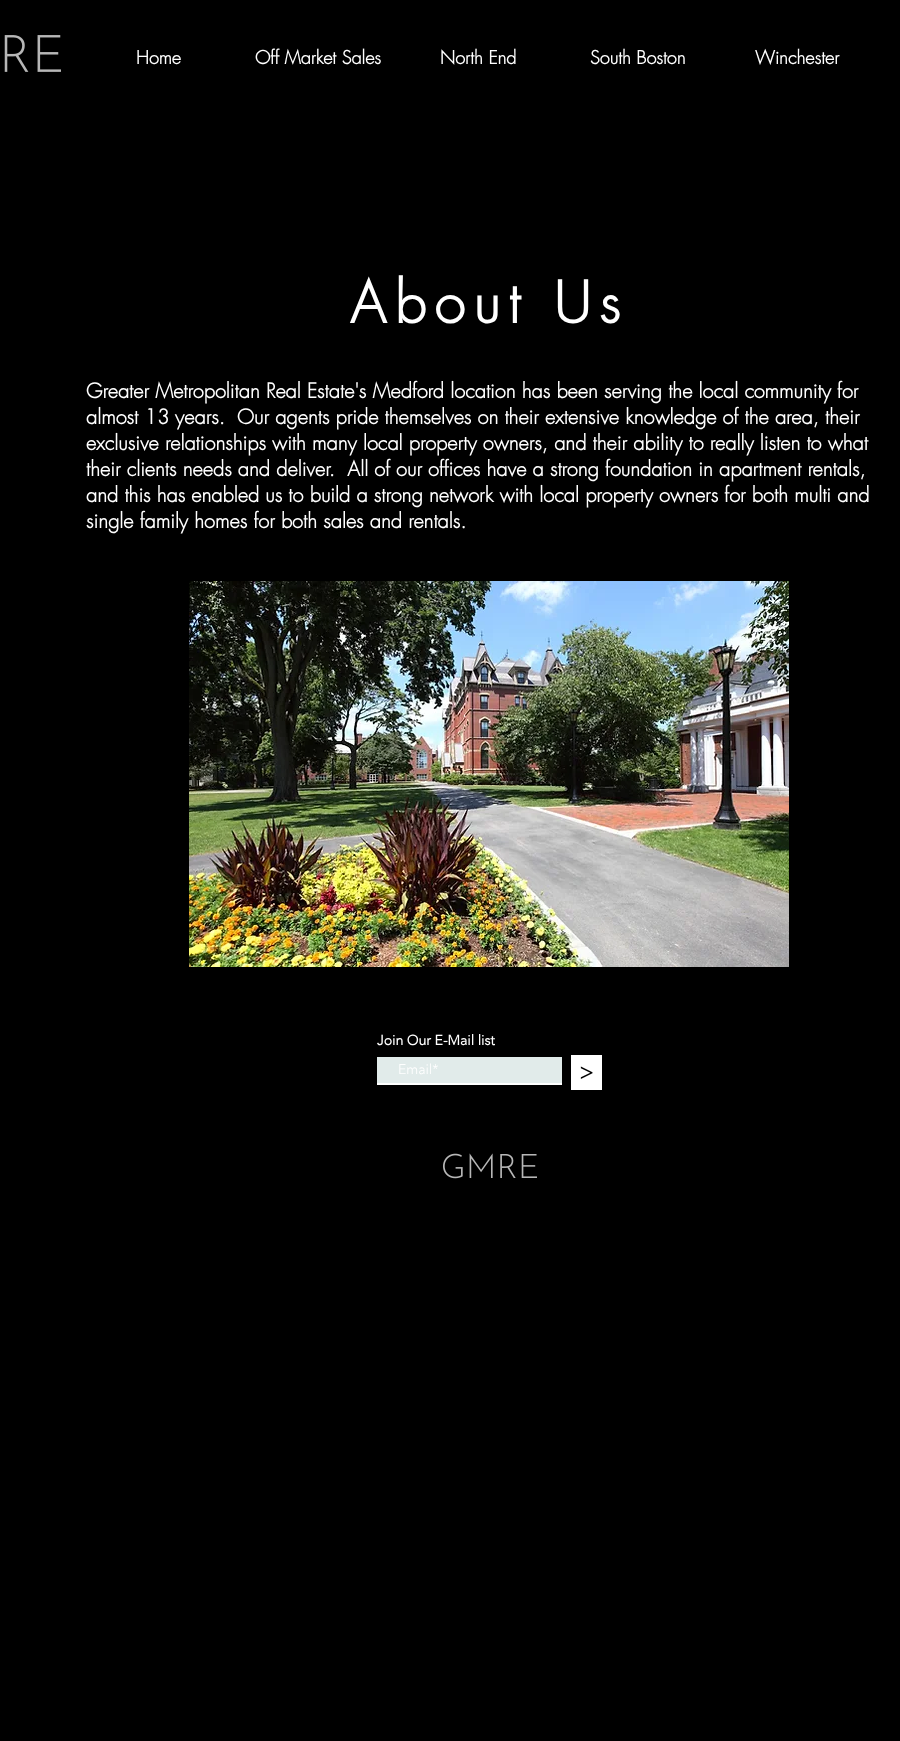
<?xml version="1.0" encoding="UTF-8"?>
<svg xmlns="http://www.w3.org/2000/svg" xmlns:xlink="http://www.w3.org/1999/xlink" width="900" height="1741">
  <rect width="100%" height="100%" fill="#000000" />
  <image x="4" y="35" width="57" height="37" xlink:href="image1.png" />
  <image x="189" y="581" width="600" height="386" xlink:href="image2.png" />
  <rect x="377" y="1057" width="185" height="26" fill="#e1ebea" />
  <rect x="377" y="1083" width="185" height="2" fill="#ffffff" />
  <rect x="571" y="1055" width="31" height="35" fill="#ffffff" />
  <image x="443" y="1153" width="94" height="26" xlink:href="image3.png" />
  <text x="136" y="64" style="font-family: futura; font-size: 18px; font-weight: bold; fill: #ffffff">Home</text>
  <text x="255" y="64" style="font-family: futura; font-size: 18px; font-weight: bold; fill: #ffffff">Off Market Sales</text>
  <text x="440" y="64" style="font-family: futura; font-size: 18px; font-weight: bold; fill: #ffffff">North End</text>
  <text x="590" y="64" style="font-family: futura; font-size: 18px; font-weight: bold; fill: #ffffff">South Boston</text>
  <text x="755" y="64" style="font-family: futura; font-size: 18px; font-weight: bold; fill: #ffffff">Winchester</text>
  <text x="350" y="323" style="font-family: futura; font-size: 56px; font-weight: bold; letter-spacing: 8.5px; fill: #ffffff">About Us</text>
  <text x="86" y="398" style="font-family: futura; font-size: 20px; font-weight: bold; fill: #ffffff">Greater Metropolitan Real Estate's Medford location has been serving the local community for</text>
  <text x="86" y="424" style="font-family: futura; font-size: 20px; font-weight: bold; fill: #ffffff" xml:space="preserve">almost 13 years.  Our agents pride themselves on their extensive knowledge of the area, their</text>
  <text x="86" y="450" style="font-family: futura; font-size: 20px; font-weight: bold; fill: #ffffff">exclusive relationships with many local property owners, and their ability to really listen to what</text>
  <text x="86" y="476" style="font-family: futura; font-size: 20px; font-weight: bold; fill: #ffffff" xml:space="preserve">their clients needs and deliver.  All of our offices have a strong foundation in apartment rentals,</text>
  <text x="86" y="502" style="font-family: futura; font-size: 20px; font-weight: bold; fill: #ffffff">and this has enabled us to build a strong network with local property owners for both multi and</text>
  <text x="86" y="528" style="font-family: futura; font-size: 20px; font-weight: bold; fill: #ffffff">single family homes for both sales and rentals.</text>
  <text x="377" y="1045" style="font-family: 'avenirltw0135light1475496'; font-size: 14px; font-weight: bold; fill: #ffffff">Join Our E-Mail list</text>
  <text x="398" y="1074" style="font-family: 'avenirltw0135light1475496'; font-size: 14px; font-weight: 300; fill: #ffffff">Email*</text>
  <text x="579" y="1081" style="font-family: Liberation Serif; font-size: 25px; font-weight: bold; font-style: italic; fill: #000000">&gt;</text>
</svg>
